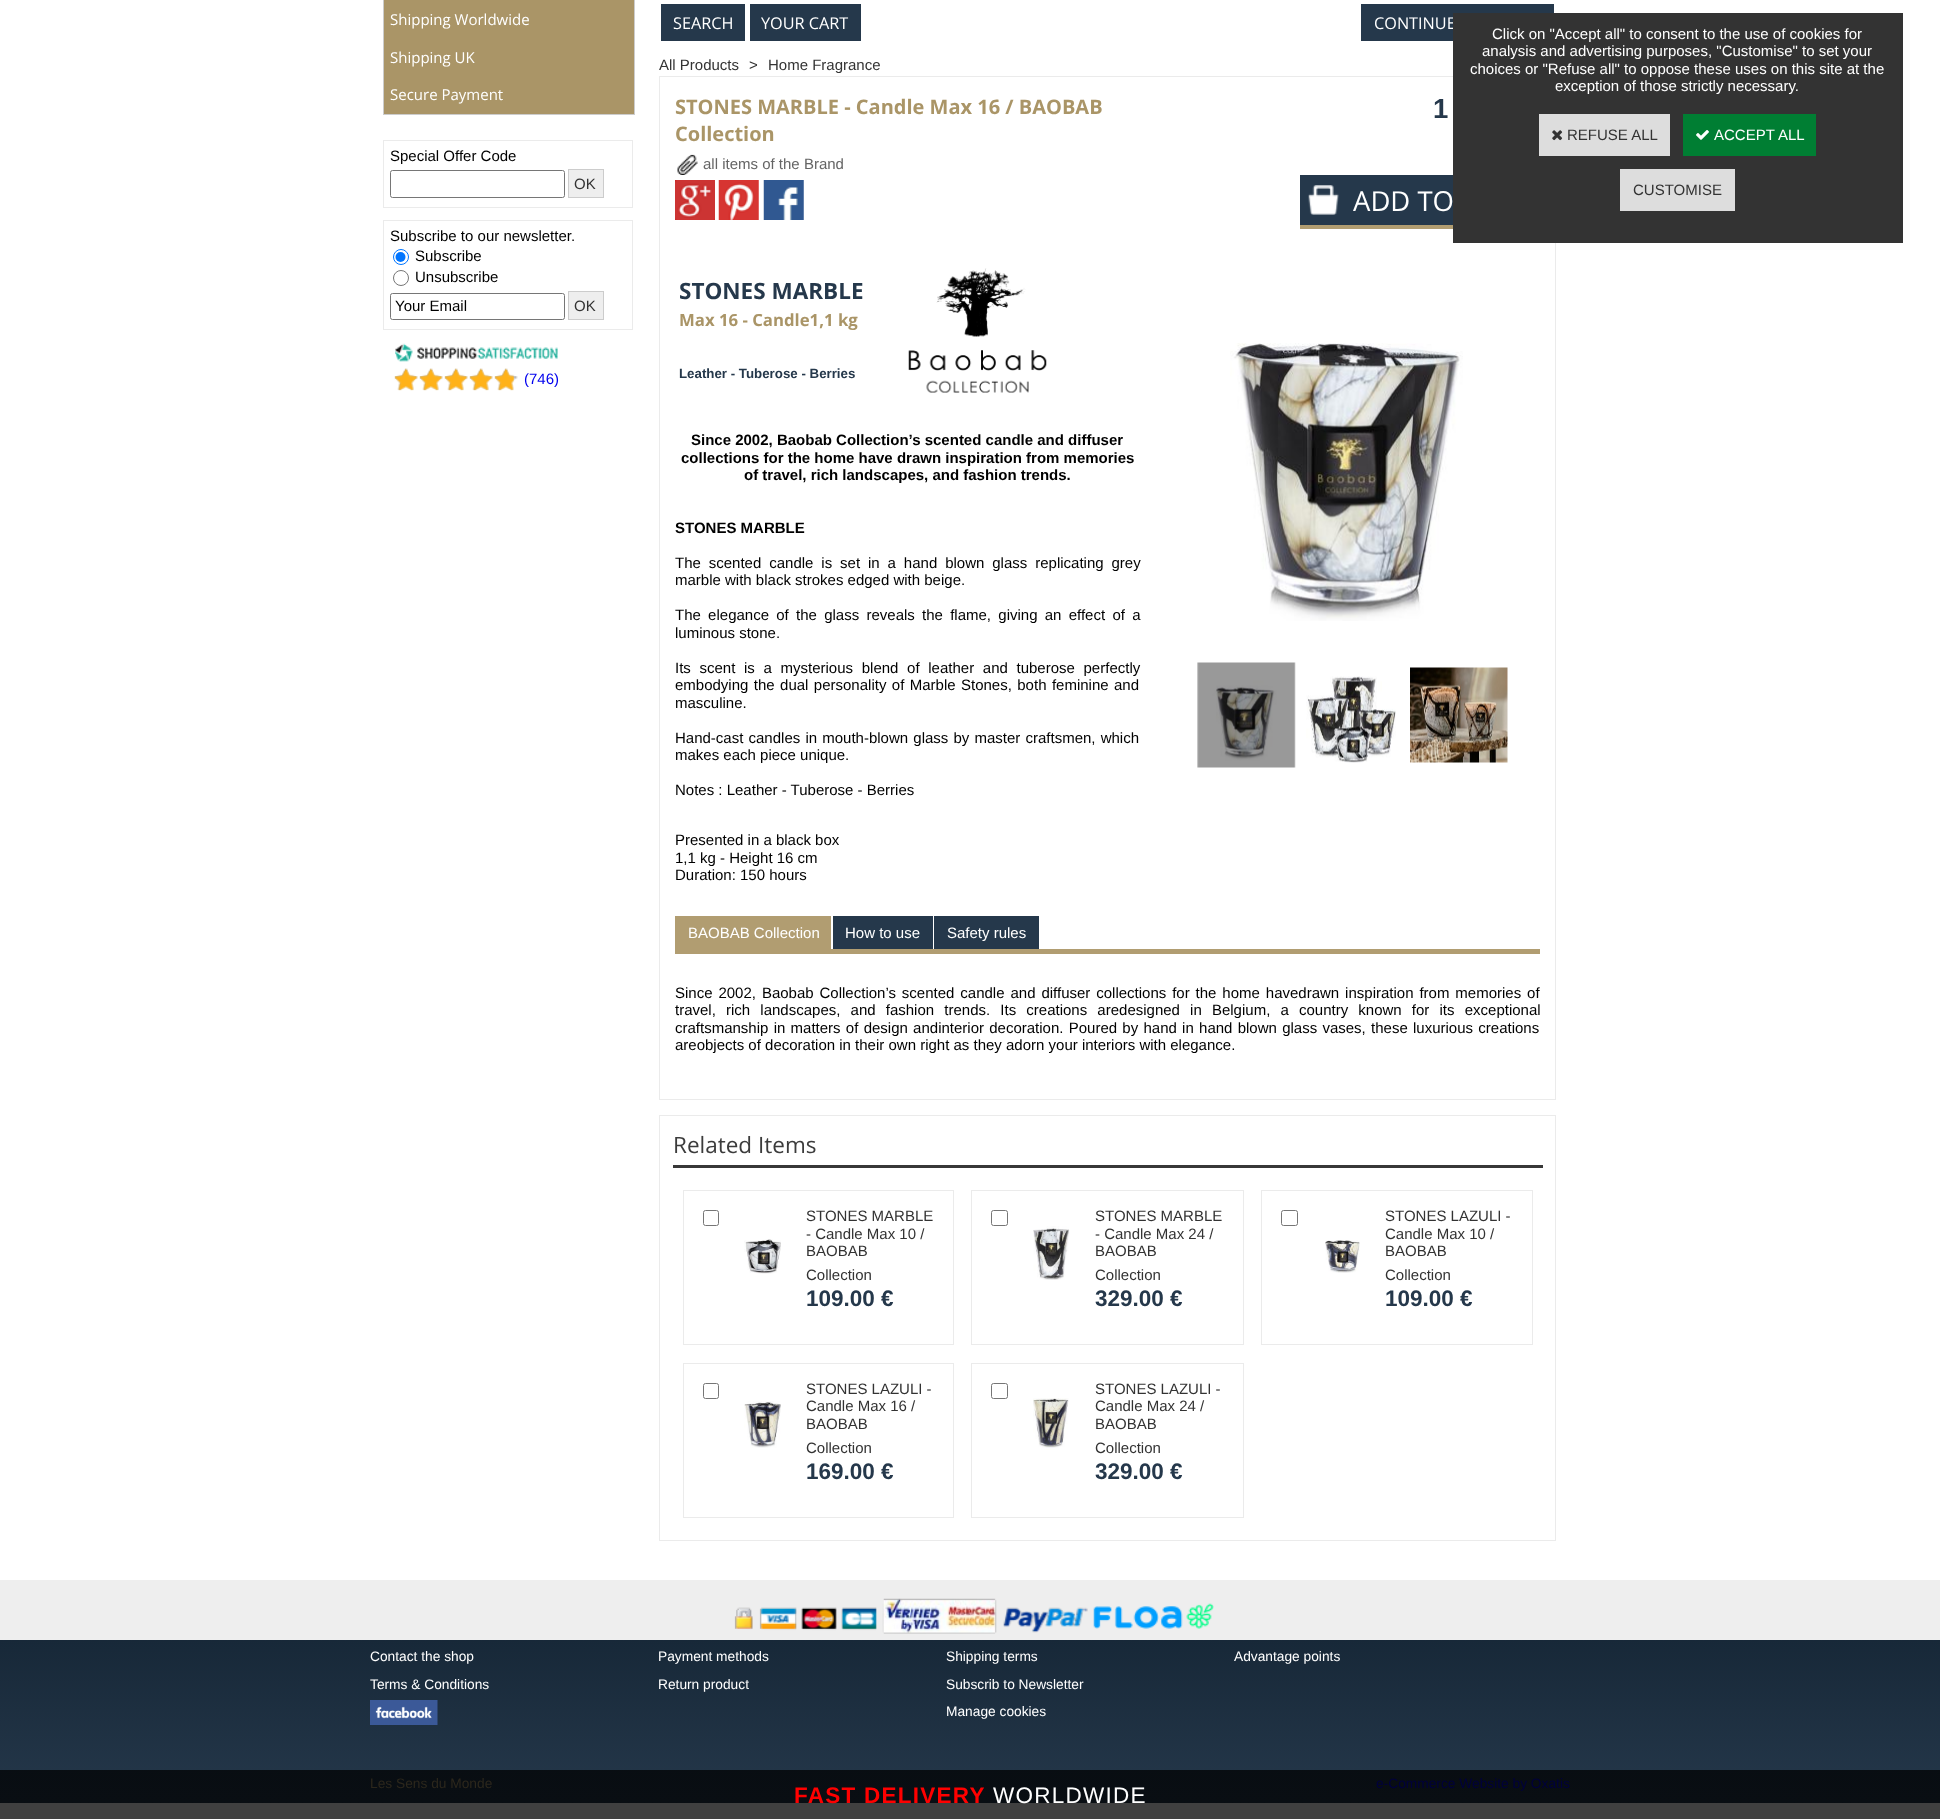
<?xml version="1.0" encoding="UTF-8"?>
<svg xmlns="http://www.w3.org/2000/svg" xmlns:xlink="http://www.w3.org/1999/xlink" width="1940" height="1819">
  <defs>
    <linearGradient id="g1" gradientUnits="userSpaceOnUse" x1="970" y1="1803" x2="970" y2="1580"><stop offset="0" stop-color="#25384b" /><stop offset="0.73" stop-color="#172838" /><stop offset="0.73" stop-color="#eeeeee" /><stop offset="1" stop-color="#eeeeee" /></linearGradient>
    <linearGradient id="g2" gradientUnits="userSpaceOnUse" x1="970" y1="1803" x2="970" y2="1580"><stop offset="0" stop-color="#090e13" /><stop offset="0.73" stop-color="#060a0e" /><stop offset="0.73" stop-color="#3c3c3c" /><stop offset="1" stop-color="#3c3c3c" /></linearGradient>
  </defs>
  <rect width="100%" height="100%" fill="#ffffff" />
  <rect y="1803" width="1940" height="16" fill="#404040" />
  <rect x="383.5" y="-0.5" width="251" height="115" fill="none" stroke="#cccccc" />
  <rect x="384" width="250" height="114" fill="#aa9567" />
  <rect x="383.5" y="140.5" width="249" height="67" fill="none" stroke="#ebebeb" />
  <rect x="390.5" y="170.5" width="174" height="27" rx="2" fill="none" stroke="#767676" />
  <rect x="568.5" y="169.5" width="35" height="28" fill="#eeeeee" stroke="#cccccc" />
  <rect x="383.5" y="220.5" width="249" height="109" fill="none" stroke="#ebebeb" />
  <circle cx="401" cy="257" r="7.5" fill="none" stroke="#0075ff" />
  <circle cx="400.5" cy="257" r="5" fill="#0075ff" />
  <circle cx="401" cy="278" r="7.5" fill="none" stroke="#767676" />
  <rect x="390.5" y="293.5" width="174" height="26" rx="2" fill="none" stroke="#767676" />
  <rect x="568.5" y="291.5" width="35" height="28" fill="#eeeeee" stroke="#cccccc" />
  <image x="395" y="343" width="163" height="19" xlink:href="image1.png" />
  <image x="394" y="368" width="124" height="23" xlink:href="image2.png" />
  <image x="394" y="368" width="120" height="23" xlink:href="image3.png" />
  <rect x="661" y="4" width="84" height="37" fill="#25384b" />
  <rect x="750" y="4" width="111" height="37" fill="#25384b" />
  <rect x="1361" y="4" width="193" height="37" fill="#25384b" />
  <rect x="659.5" y="76.5" width="896" height="1023" fill="none" stroke="#ebebeb" />
  <image x="677" y="154" width="21" height="21" xlink:href="image4.png" />
  <image x="675" y="180" width="40" height="40" xlink:href="image5.png" />
  <image x="718" y="180" width="41" height="40" xlink:href="image6.png" />
  <image x="763" y="180" width="41" height="40" xlink:href="image7.png" />
  <rect x="1300" y="175" width="153" height="50" fill="#25384b" />
  <image x="1308" y="185" width="31" height="30" xlink:href="image8.png" />
  <rect x="1300" y="225" width="153" height="4" fill="#b19d71" />
  <image x="908" y="268" width="139" height="125" xlink:href="image9.png" />
  <rect x="675" y="916" width="156" height="33" fill="#b19d71" />
  <rect x="833" y="916" width="100" height="33" fill="#25384b" />
  <rect x="934" y="916" width="105" height="33" fill="#25384b" />
  <rect x="675" y="949" width="865" height="5" fill="#b19d71" />
  <image x="1230" y="343" width="233" height="278" xlink:href="image10.png" />
  <image x="1197" y="662" width="99" height="106" xlink:href="image11.png" />
  <image x="1306" y="676" width="90" height="87" xlink:href="image12.png" />
  <image x="1410" y="667" width="98" height="96" xlink:href="image13.png" />
  <rect x="659.5" y="1115.5" width="896" height="425" fill="none" stroke="#ebebeb" />
  <rect x="673" y="1165" width="870" height="3" fill="#383838" />
  <rect x="683.5" y="1190.5" width="270" height="154" fill="none" stroke="#ebebeb" />
  <rect x="703.5" y="1210.5" width="15" height="15" rx="2" fill="none" stroke="#767676" />
  <image x="744" y="1239" width="37" height="35" xlink:href="image14.png" />
  <rect x="971.5" y="1190.5" width="272" height="154" fill="none" stroke="#ebebeb" />
  <rect x="991.5" y="1210.5" width="16" height="15" rx="2" fill="none" stroke="#767676" />
  <image x="1033" y="1226" width="37" height="54" xlink:href="image15.png" />
  <rect x="1261.5" y="1190.5" width="271" height="154" fill="none" stroke="#ebebeb" />
  <rect x="1281.5" y="1210.5" width="16" height="15" rx="2" fill="none" stroke="#767676" />
  <image x="1325" y="1240" width="35" height="33" xlink:href="image16.png" />
  <rect x="683.5" y="1363.5" width="270" height="154" fill="none" stroke="#ebebeb" />
  <rect x="703.5" y="1383.5" width="15" height="15" rx="2" fill="none" stroke="#767676" />
  <image x="744" y="1401" width="37" height="47" xlink:href="image17.png" />
  <rect x="971.5" y="1363.5" width="272" height="154" fill="none" stroke="#ebebeb" />
  <rect x="991.5" y="1383.5" width="16" height="15" rx="2" fill="none" stroke="#767676" />
  <image x="1033" y="1398" width="36" height="52" xlink:href="image18.png" />
  <rect y="1580" width="1940" height="190" fill="url(#g1)" />
  <rect y="1770" width="1940" height="33" fill="url(#g2)" />
  <image x="734" y="1598" width="480" height="36" xlink:href="image21.png" />
  <image x="370" y="1700" width="68" height="25" xlink:href="image22.png" />
  <text x="390" y="25" style="font-family: Open Sans; font-size: 15px; fill: #ffffff">Shipping Worldwide</text>
  <text x="390" y="63" style="font-family: Open Sans; font-size: 15px; fill: #ffffff">Shipping UK</text>
  <text x="390" y="100" style="font-family: Open Sans; font-size: 15px; fill: #ffffff">Secure Payment</text>
  <text x="390" y="161" style="font-family: Liberation Sans; font-size: 15px; fill: #000000">Special Offer Code</text>
  <text x="574" y="189" style="font-family: Liberation Sans; font-size: 15px; fill: #333333">OK</text>
  <text x="390" y="241" style="font-family: Liberation Sans; font-size: 15px; fill: #000000">Subscribe to our newsletter.</text>
  <text x="415" y="261" style="font-family: Liberation Sans; font-size: 15px; fill: #000000">Subscribe</text>
  <text x="415" y="282" style="font-family: Liberation Sans; font-size: 15px; fill: #000000">Unsubscribe</text>
  <text x="395" y="311" style="font-family: Liberation Sans; font-size: 15px; fill: #000000">Your Email</text>
  <text x="574" y="311" style="font-family: Liberation Sans; font-size: 15px; fill: #333333">OK</text>
  <text x="524" y="384" style="font-family: Liberation Sans; font-size: 15px; fill: #0000ee">(746)</text>
  <text x="673" y="29" style="font-family: Open Sans; font-size: 16.25px; fill: #ffffff">SEARCH</text>
  <text x="761" y="29" style="font-family: Open Sans; font-size: 16.25px; fill: #ffffff">YOUR CART</text>
  <text x="1374" y="29" style="font-family: Open Sans; font-size: 16.25px; fill: #ffffff">CONTINUE</text>
  <text x="659" y="70" style="font-family: Liberation Sans; font-size: 15px; fill: #333333">All Products</text>
  <text x="749" y="70" style="font-family: Liberation Sans; font-size: 15px; fill: #333333">&gt;</text>
  <text x="768" y="70" style="font-family: Liberation Sans; font-size: 15px; fill: #333333">Home Fragrance</text>
  <text x="675" y="114" style="font-family: Open Sans; font-size: 20px; font-weight: bold; fill: #aa9567">STONES MARBLE - Candle Max 16 / BAOBAB</text>
  <text x="675" y="141" style="font-family: Open Sans; font-size: 20px; font-weight: bold; fill: #aa9567">Collection</text>
  <text x="703" y="169" style="font-family: Liberation Sans; font-size: 15px; fill: #656565">all items of the Brand</text>
  <text x="1433" y="118" style="font-family: Liberation Sans; font-size: 27.5px; font-weight: bold; fill: #25384b">1</text>
  <text x="1353" y="211" style="font-family: Open Sans; font-size: 27.5px; fill: #ffffff">ADD TO</text>
  <text x="679" y="299" style="font-family: Open Sans; font-size: 22.5px; font-weight: bold; fill: #25384b">STONES MARBLE</text>
  <text x="679" y="326" style="font-family: Open Sans; font-size: 16.75px; font-weight: bold; fill: #aa9567">Max 16 - Candle1,1 kg</text>
  <text x="679" y="378" style="font-family: Liberation Sans; font-size: 13.3px; font-weight: bold; fill: #25384b">Leather - Tuberose - Berries</text>
  <text x="691" y="445" style="font-family: Liberation Sans; font-size: 15px; font-weight: bold; fill: #000000">Since 2002, Baobab Collection’s scented candle and diffuser</text>
  <text x="681" y="463" style="font-family: Liberation Sans; font-size: 15px; font-weight: bold; fill: #000000">collections for the home have drawn inspiration from memories</text>
  <text x="744" y="480" style="font-family: Liberation Sans; font-size: 15px; font-weight: bold; fill: #000000">of travel, rich landscapes, and fashion trends.</text>
  <text x="675" y="533" style="font-family: Liberation Sans; font-size: 15px; font-weight: bold; fill: #000000">STONES MARBLE</text>
  <text x="675" y="568" word-spacing="3.75" style="font-family: Liberation Sans; font-size: 15px; fill: #000000">The scented candle is set in a hand blown glass replicating grey</text>
  <text x="675" y="585" style="font-family: Liberation Sans; font-size: 15px; fill: #000000">marble with black strokes edged with beige.</text>
  <text x="675" y="620" word-spacing="3.1" style="font-family: Liberation Sans; font-size: 15px; fill: #000000">The elegance of the glass reveals the flame, giving an effect of a</text>
  <text x="675" y="638" style="font-family: Liberation Sans; font-size: 15px; fill: #000000">luminous stone.</text>
  <text x="675" y="673" word-spacing="4.5" style="font-family: Liberation Sans; font-size: 15px; fill: #000000">Its scent is a mysterious blend of leather and tuberose perfectly</text>
  <text x="675" y="690" word-spacing="1.25" style="font-family: Liberation Sans; font-size: 15px; fill: #000000">embodying the dual personality of Marble Stones, both feminine and</text>
  <text x="675" y="708" style="font-family: Liberation Sans; font-size: 15px; fill: #000000">masculine.</text>
  <text x="675" y="743" word-spacing="1" style="font-family: Liberation Sans; font-size: 15px; fill: #000000">Hand-cast candles in mouth-blown glass by master craftsmen, which</text>
  <text x="675" y="760" style="font-family: Liberation Sans; font-size: 15px; fill: #000000">makes each piece unique.</text>
  <text x="675" y="795" style="font-family: Liberation Sans; font-size: 15px; fill: #000000">Notes : Leather - Tuberose - Berries</text>
  <text x="675" y="845" style="font-family: Liberation Sans; font-size: 15px; fill: #000000">Presented in a black box</text>
  <text x="675" y="863" style="font-family: Liberation Sans; font-size: 15px; fill: #000000">1,1 kg - Height 16 cm</text>
  <text x="675" y="880" style="font-family: Liberation Sans; font-size: 15px; fill: #000000">Duration: 150 hours</text>
  <text x="688" y="938" style="font-family: Liberation Sans; font-size: 15px; fill: #ffffff">BAOBAB Collection</text>
  <text x="845" y="938" style="font-family: Liberation Sans; font-size: 15px; fill: #ffffff">How to use</text>
  <text x="947" y="938" style="font-family: Liberation Sans; font-size: 15px; fill: #ffffff">Safety rules</text>
  <text x="675" y="998" word-spacing="1.75" style="font-family: Liberation Sans; font-size: 15px; fill: #000000">Since 2002, Baobab Collection’s scented candle and diffuser collections for the home havedrawn inspiration from memories of</text>
  <text x="675" y="1015" word-spacing="6" style="font-family: Liberation Sans; font-size: 15px; fill: #000000">travel, rich landscapes, and fashion trends. Its creations aredesigned in Belgium, a country known for its exceptional</text>
  <text x="675" y="1033" word-spacing="1.1" style="font-family: Liberation Sans; font-size: 15px; fill: #000000">craftsmanship in matters of design andinterior decoration. Poured by hand in hand blown glass vases, these luxurious creations</text>
  <text x="675" y="1050" style="font-family: Liberation Sans; font-size: 15px; fill: #000000">areobjects of decoration in their own right as they adorn your interiors with elegance.</text>
  <text x="673" y="1153" style="font-family: Open Sans; font-size: 22.5px; fill: #3c3c3c">Related Items</text>
  <text x="806" y="1221" style="font-family: Liberation Sans; font-size: 15px; fill: #333333">STONES MARBLE</text>
  <text x="806" y="1239" style="font-family: Liberation Sans; font-size: 15px; fill: #333333">- Candle Max 10 /</text>
  <text x="806" y="1256" style="font-family: Liberation Sans; font-size: 15px; fill: #333333">BAOBAB</text>
  <text x="806" y="1280" style="font-family: Liberation Sans; font-size: 15px; fill: #333333">Collection</text>
  <text x="806" y="1306" style="font-family: Liberation Sans; font-size: 22.5px; font-weight: bold; fill: #25384b">109.00 €</text>
  <text x="1095" y="1221" style="font-family: Liberation Sans; font-size: 15px; fill: #333333">STONES MARBLE</text>
  <text x="1095" y="1239" style="font-family: Liberation Sans; font-size: 15px; fill: #333333">- Candle Max 24 /</text>
  <text x="1095" y="1256" style="font-family: Liberation Sans; font-size: 15px; fill: #333333">BAOBAB</text>
  <text x="1095" y="1280" style="font-family: Liberation Sans; font-size: 15px; fill: #333333">Collection</text>
  <text x="1095" y="1306" style="font-family: Liberation Sans; font-size: 22.5px; font-weight: bold; fill: #25384b">329.00 €</text>
  <text x="1385" y="1221" style="font-family: Liberation Sans; font-size: 15px; fill: #333333">STONES LAZULI -</text>
  <text x="1385" y="1239" style="font-family: Liberation Sans; font-size: 15px; fill: #333333">Candle Max 10 /</text>
  <text x="1385" y="1256" style="font-family: Liberation Sans; font-size: 15px; fill: #333333">BAOBAB</text>
  <text x="1385" y="1280" style="font-family: Liberation Sans; font-size: 15px; fill: #333333">Collection</text>
  <text x="1385" y="1306" style="font-family: Liberation Sans; font-size: 22.5px; font-weight: bold; fill: #25384b">109.00 €</text>
  <text x="806" y="1394" style="font-family: Liberation Sans; font-size: 15px; fill: #333333">STONES LAZULI -</text>
  <text x="806" y="1411" style="font-family: Liberation Sans; font-size: 15px; fill: #333333">Candle Max 16 /</text>
  <text x="806" y="1429" style="font-family: Liberation Sans; font-size: 15px; fill: #333333">BAOBAB</text>
  <text x="806" y="1453" style="font-family: Liberation Sans; font-size: 15px; fill: #333333">Collection</text>
  <text x="806" y="1479" style="font-family: Liberation Sans; font-size: 22.5px; font-weight: bold; fill: #25384b">169.00 €</text>
  <text x="1095" y="1394" style="font-family: Liberation Sans; font-size: 15px; fill: #333333">STONES LAZULI -</text>
  <text x="1095" y="1411" style="font-family: Liberation Sans; font-size: 15px; fill: #333333">Candle Max 24 /</text>
  <text x="1095" y="1429" style="font-family: Liberation Sans; font-size: 15px; fill: #333333">BAOBAB</text>
  <text x="1095" y="1453" style="font-family: Liberation Sans; font-size: 15px; fill: #333333">Collection</text>
  <text x="1095" y="1479" style="font-family: Liberation Sans; font-size: 22.5px; font-weight: bold; fill: #25384b">329.00 €</text>
  <rect x="1453" y="13" width="450" height="230" fill="#333333" />
  <text x="1492" y="39" style="font-family: Liberation Sans; font-size: 15px; fill: #ffffff">Click on "Accept all" to consent to the use of cookies for</text>
  <text x="1482" y="56" style="font-family: Liberation Sans; font-size: 15px; fill: #ffffff">analysis and advertising purposes, "Customise" to set your</text>
  <text x="1470" y="74" style="font-family: Liberation Sans; font-size: 15px; fill: #ffffff">choices or "Refuse all" to oppose these uses on this site at the</text>
  <text x="1555" y="91" style="font-family: Liberation Sans; font-size: 15px; fill: #ffffff">exception of those strictly necessary.</text>
  <rect x="1539" y="114" width="131" height="42" fill="#dddddd" />
  <image x="1552" y="130" width="11" height="11" xlink:href="image19.png" />
  <text x="1567" y="140" style="font-family: Liberation Sans; font-size: 15px; fill: #333333">REFUSE ALL</text>
  <rect x="1683" y="114" width="133" height="42" fill="#007e33" />
  <image x="1696" y="130" width="13" height="10" xlink:href="image20.png" />
  <text x="1714" y="140" style="font-family: Liberation Sans; font-size: 15px; fill: #ffffff">ACCEPT ALL</text>
  <rect x="1620" y="169" width="115" height="42" fill="#dddddd" />
  <text x="1633" y="195" style="font-family: Liberation Sans; font-size: 15px; fill: #333333">CUSTOMISE</text>
  <text x="370" y="1661" style="font-family: Liberation Sans; font-size: 13.75px; fill: #ffffff">Contact the shop</text>
  <text x="658" y="1661" style="font-family: Liberation Sans; font-size: 13.75px; fill: #ffffff">Payment methods</text>
  <text x="946" y="1661" style="font-family: Liberation Sans; font-size: 13.75px; fill: #ffffff">Shipping terms</text>
  <text x="1234" y="1661" style="font-family: Liberation Sans; font-size: 13.75px; fill: #ffffff">Advantage points</text>
  <text x="370" y="1689" style="font-family: Liberation Sans; font-size: 13.75px; fill: #ffffff">Terms &amp; Conditions</text>
  <text x="658" y="1689" style="font-family: Liberation Sans; font-size: 13.75px; fill: #ffffff">Return product</text>
  <text x="946" y="1689" style="font-family: Liberation Sans; font-size: 13.75px; fill: #ffffff">Subscrib to Newsletter</text>
  <text x="946" y="1716" style="font-family: Liberation Sans; font-size: 13.75px; fill: #ffffff">Manage cookies</text>
  <text x="370" y="1788" style="font-family: Liberation Sans; font-size: 13.75px; fill: #2c271c">Les Sens du Monde</text>
  <text x="1376" y="1788" style="font-family: Liberation Sans; font-size: 13.75px; fill: #00003c">e-Commerce Website by Oxatis</text>
  <text x="794" y="1803" style="font-family: Liberation Sans; font-size: 22.5px; font-weight: bold; letter-spacing: 1.25px; fill: #ff0000">FAST DELIVERY</text>
  <text x="993" y="1803" style="font-family: Liberation Sans; font-size: 22.5px; letter-spacing: 1.25px; fill: #ffffff">WORLDWIDE</text>
</svg>
